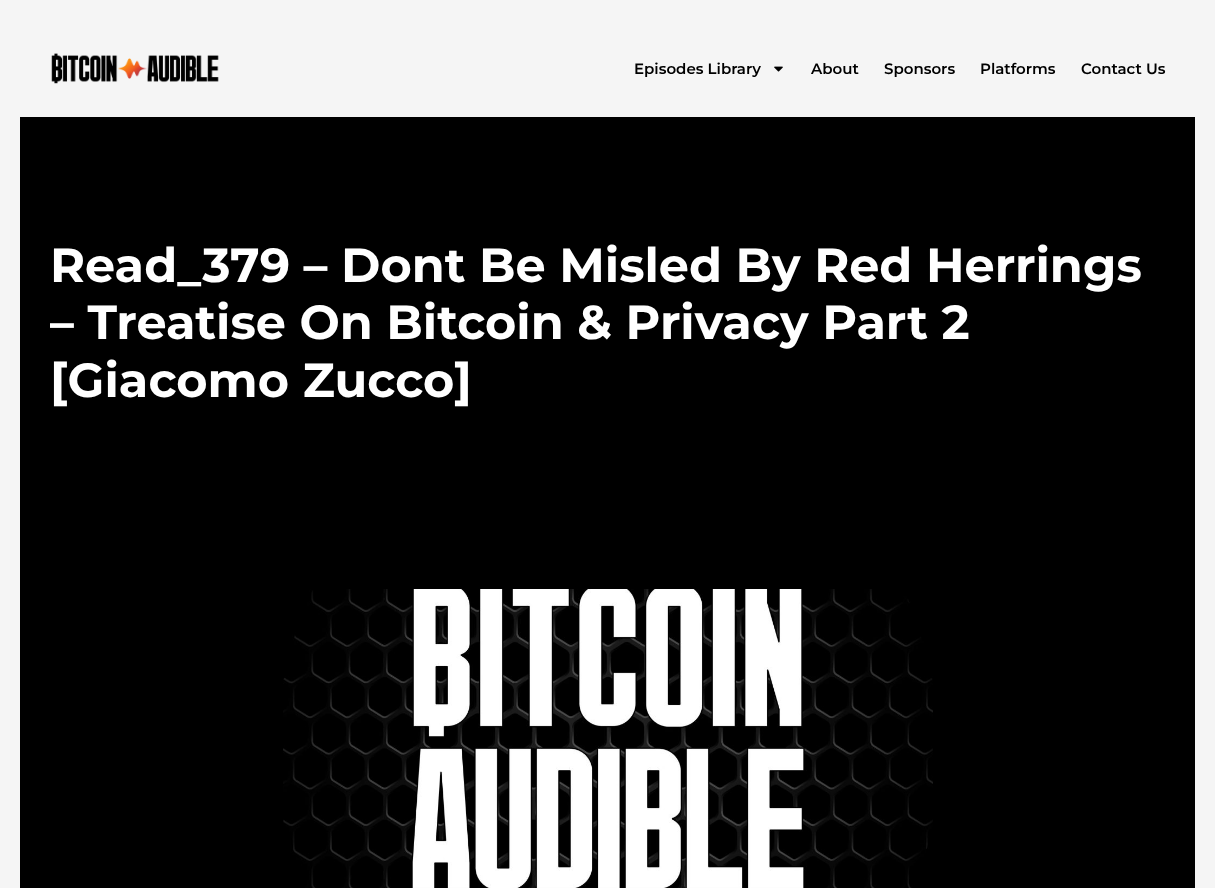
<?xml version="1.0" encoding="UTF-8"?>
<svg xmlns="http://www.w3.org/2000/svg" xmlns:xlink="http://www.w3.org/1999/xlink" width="1215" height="888">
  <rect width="100%" height="100%" fill="#f5f5f5" />
  <image x="51" y="53" width="168" height="31" xlink:href="image1.png" />
  <image x="774" y="66" width="9" height="6" xlink:href="image2.png" />
  <rect x="20" y="117" width="1175" height="771" fill="#000000" />
  <image x="283" y="589" width="650" height="299" xlink:href="image3.png" />
  <text x="634" y="74" style="font-family: Montserrat; font-size: 15px; font-weight: 600; fill: #000000">Episodes Library</text>
  <text x="811" y="74" style="font-family: Montserrat; font-size: 15px; font-weight: 600; fill: #000000">About</text>
  <text x="884" y="74" style="font-family: Montserrat; font-size: 15px; font-weight: 600; fill: #000000">Sponsors</text>
  <text x="980" y="74" style="font-family: Montserrat; font-size: 15px; font-weight: 600; fill: #000000">Platforms</text>
  <text x="1081" y="74" style="font-family: Montserrat; font-size: 15px; font-weight: 600; fill: #000000">Contact Us</text>
  <text x="50" y="282" style="font-family: Montserrat; font-size: 47.75px; font-weight: bold; fill: #ffffff">Read_379 – Dont Be Misled By Red Herrings</text>
  <text x="50" y="339" style="font-family: Montserrat; font-size: 47.75px; font-weight: bold; fill: #ffffff">– Treatise On Bitcoin &amp; Privacy Part 2</text>
  <text x="50" y="397" style="font-family: Montserrat; font-size: 47.75px; font-weight: bold; fill: #ffffff">[Giacomo Zucco]</text>
</svg>
